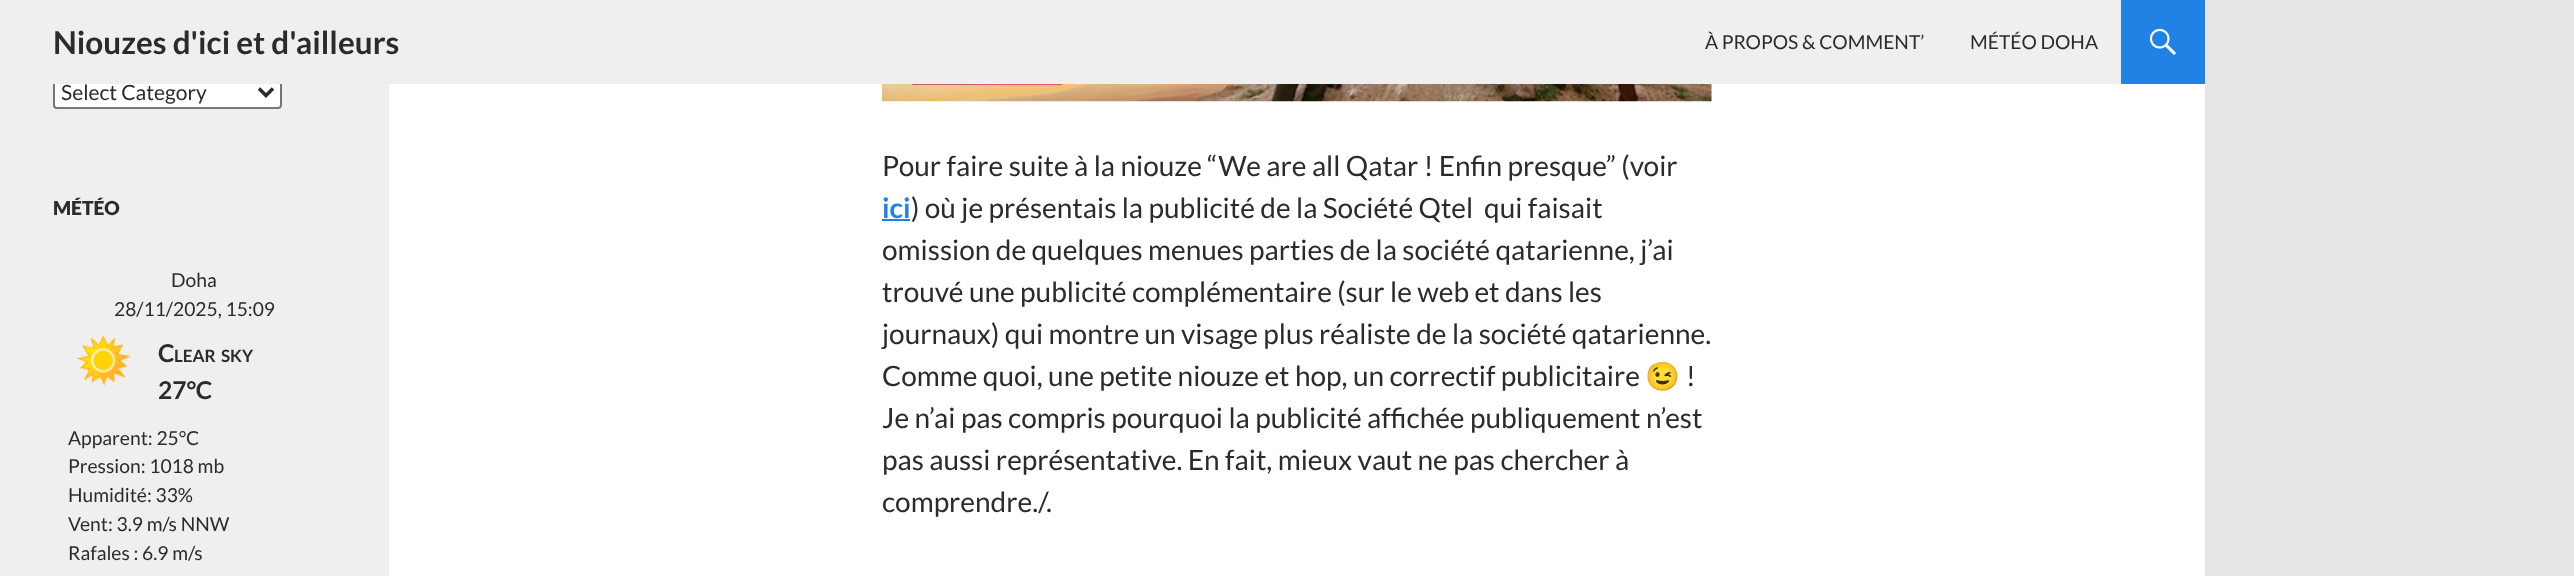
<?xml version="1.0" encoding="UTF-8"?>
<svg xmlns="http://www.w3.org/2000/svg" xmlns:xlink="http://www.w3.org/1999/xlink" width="2574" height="576">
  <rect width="100%" height="100%" fill="#e5e5e5" />
  <rect x="389" y="84" width="1816" height="492" fill="#ffffff" />
  <rect y="84" width="389" height="492" fill="#efefef" />
  <rect x="54" y="76" width="227" height="32" rx="3" fill="#ffffff" stroke="#767676" stroke-width="2" />
  <rect width="2121" height="84" fill="#efefef" />
  <rect x="2121" width="84" height="84" fill="#2082e5" />
  <image x="2149" y="28" width="27" height="27" xlink:href="image1.png" />
  <path d="M 259 88.5 l 7 7 l 7 -7" fill="none" stroke="#2b2b2b" stroke-width="3.5" />
  <image x="76" y="335" width="56" height="52" xlink:href="image2.png" />
  <image x="882" y="84" width="830" height="18" xlink:href="image3.png" />
  <rect x="882" y="219" width="28" height="2" fill="#2082e5" />
  <text x="53" y="54" style="font-family: Lato; font-size: 31.5px; font-weight: bold; fill: #2b2b2b">Niouzes d'ici et d'ailleurs</text>
  <text x="1705" y="49" style="font-family: Lato; font-size: 19.25px; fill: #2b2b2b">À PROPOS &amp; COMMENT’</text>
  <text x="1970" y="49" style="font-family: Lato; font-size: 19.25px; fill: #2b2b2b">MÉTÉO DOHA</text>
  <text x="61" y="100" style="font-family: Lato; font-size: 21px; fill: #2b2b2b">Select Category</text>
  <text x="53" y="215" style="font-family: Lato; font-size: 19.25px; font-weight: 900; fill: #2b2b2b">MÉTÉO</text>
  <text x="171" y="287" style="font-family: Lato; font-size: 19.25px; fill: #2b2b2b">Doha</text>
  <text x="114" y="316" style="font-family: Lato; font-size: 19.25px; fill: #2b2b2b">28/11/2025, 15:09</text>
  <text x="158" y="362" style="font-family: Lato; font-size: 24.5px; font-weight: bold; fill: #2b2b2b">C</text>
  <text x="174" y="362" style="font-family: Lato; font-size: 17px; font-weight: bold; fill: #2b2b2b">LEAR</text>
  <text x="221" y="362" style="font-family: Lato; font-size: 17px; font-weight: bold; fill: #2b2b2b">SKY</text>
  <text x="158" y="399" style="font-family: Lato; font-size: 24.5px; font-weight: bold; fill: #2b2b2b">27°C</text>
  <text x="68" y="445" style="font-family: Lato; font-size: 19.25px; fill: #2b2b2b">Apparent: 25°C</text>
  <text x="68" y="473" style="font-family: Lato; font-size: 19.25px; fill: #2b2b2b">Pression: 1018 mb</text>
  <text x="68" y="502" style="font-family: Lato; font-size: 19.25px; fill: #2b2b2b">Humidité: 33%</text>
  <text x="68" y="531" style="font-family: Lato; font-size: 19.25px; fill: #2b2b2b">Vent: 3.9 m/s NNW</text>
  <text x="68" y="560" style="font-family: Lato; font-size: 19.25px; fill: #2b2b2b">Rafales : 6.9 m/s</text>
  <text x="882" y="176" style="font-family: Lato; font-size: 28px; fill: #2b2b2b">Pour faire suite à la niouze “We are all Qatar ! Enfin presque” (voir</text>
  <text x="882" y="218" style="font-family: Lato; font-size: 28px; font-weight: bold; fill: #2082e5">ici</text>
  <text x="911" y="218" style="font-family: Lato; font-size: 28px; fill: #2b2b2b" xml:space="preserve">) où je présentais la publicité de la Société Qtel  qui faisait</text>
  <text x="882" y="260" style="font-family: Lato; font-size: 28px; fill: #2b2b2b">omission de quelques menues parties de la société qatarienne, j’ai</text>
  <text x="882" y="302" style="font-family: Lato; font-size: 28px; fill: #2b2b2b">trouvé une publicité complémentaire (sur le web et dans les</text>
  <text x="882" y="344" style="font-family: Lato; font-size: 28px; fill: #2b2b2b">journaux) qui montre un visage plus réaliste de la société qatarienne.</text>
  <text x="882" y="386" style="font-family: Lato; font-size: 28px; fill: #2b2b2b">Comme quoi, une petite niouze et hop, un correctif publicitaire</text>
  <text x="1645" y="386" style="font-family: Noto Color Emoji; font-size: 28px; fill: #2b2b2b">😉</text>
  <text x="1686" y="386" style="font-family: Lato; font-size: 28px; fill: #2b2b2b">!</text>
  <text x="882" y="428" style="font-family: Lato; font-size: 28px; fill: #2b2b2b">Je n’ai pas compris pourquoi la publicité affichée publiquement n’est</text>
  <text x="882" y="470" style="font-family: Lato; font-size: 28px; fill: #2b2b2b">pas aussi représentative. En fait, mieux vaut ne pas chercher à</text>
  <text x="882" y="512" style="font-family: Lato; font-size: 28px; fill: #2b2b2b">comprendre./.</text>
</svg>
